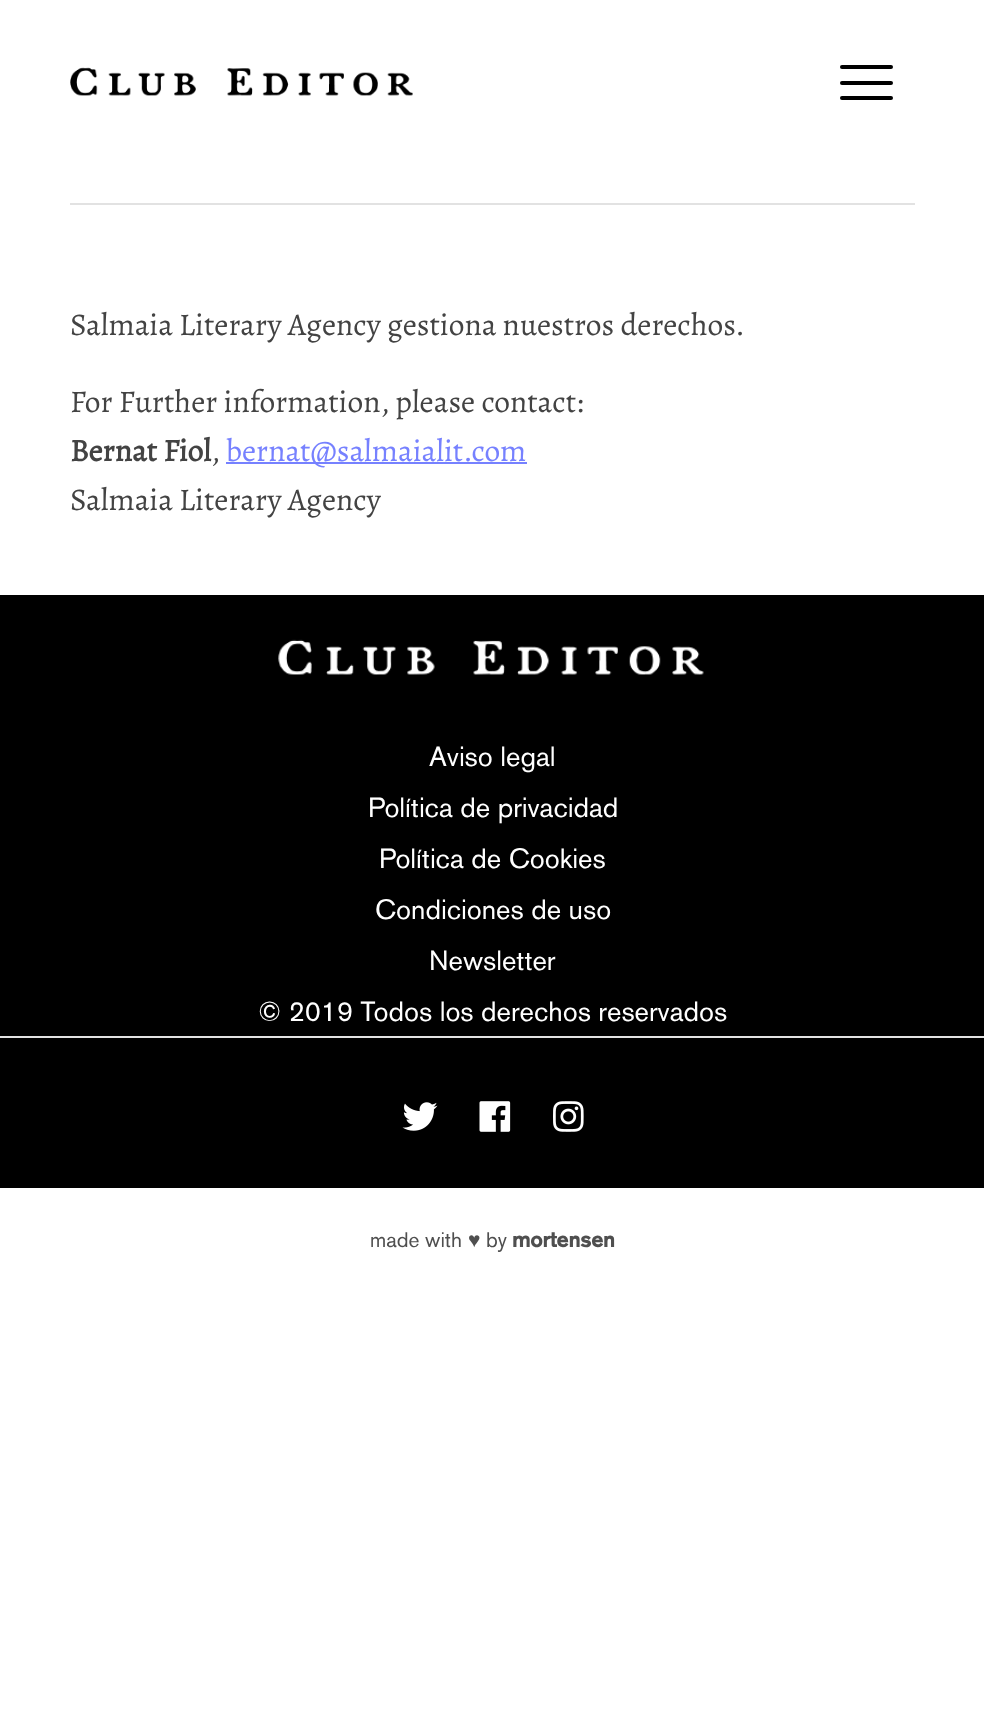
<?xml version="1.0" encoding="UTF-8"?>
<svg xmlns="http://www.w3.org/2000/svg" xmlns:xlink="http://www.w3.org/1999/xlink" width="984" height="1736">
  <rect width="100%" height="100%" fill="#ffffff" />
  <image x="70" y="67" width="343" height="29" xlink:href="image1.png" />
  <rect x="840" y="65" width="53" height="4" rx="2" fill="#000000" />
  <rect x="840" y="81" width="53" height="4" rx="2" fill="#000000" />
  <rect x="840" y="96" width="53" height="4" rx="2" fill="#000000" />
  <rect x="70" y="203" width="845" height="2" fill="#e2e2e2" />
  <rect x="226" y="462" width="301" height="2" fill="#7681ff" />
  <rect y="595" width="984" height="593" fill="#000000" />
  <image x="278" y="639" width="426" height="36" xlink:href="image2.png" />
  <rect y="1036" width="984" height="2" fill="#e2e2e2" />
  <image x="402" y="1102" width="36" height="29" xlink:href="image3.png" />
  <image x="479" y="1101" width="32" height="31" xlink:href="image4.png" />
  <image x="553" y="1101" width="31" height="31" xlink:href="image5.png" />
  <text x="70" y="335" style="font-family: Alegreya; font-size: 31.5px; fill: #434343">Salmaia Literary Agency gestiona nuestros derechos.</text>
  <text x="70" y="412" style="font-family: Alegreya; font-size: 31.5px; fill: #434343">For Further information, please contact:</text>
  <text x="70" y="461" style="font-family: Alegreya; font-size: 31.5px; font-weight: bold; fill: #434343">Bernat Fiol</text>
  <text x="211" y="461" style="font-family: Alegreya; font-size: 31.5px; fill: #434343">,</text>
  <text x="226" y="461" style="font-family: Alegreya; font-size: 31.5px; fill: #7681ff">bernat@salmaialit.com</text>
  <text x="70" y="510" style="font-family: Alegreya; font-size: 31.5px; fill: #434343">Salmaia Literary Agency</text>
  <text x="429" y="766" style="font-family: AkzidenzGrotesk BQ; font-size: 27.6px; font-weight: 500; fill: #ffffff">Aviso legal</text>
  <text x="368" y="817" style="font-family: AkzidenzGrotesk BQ; font-size: 27.6px; font-weight: 500; fill: #ffffff">Política de privacidad</text>
  <text x="379" y="868" style="font-family: AkzidenzGrotesk BQ; font-size: 27.6px; font-weight: 500; fill: #ffffff">Política de Cookies</text>
  <text x="375" y="919" style="font-family: AkzidenzGrotesk BQ; font-size: 27.6px; font-weight: 500; fill: #ffffff">Condiciones de uso</text>
  <text x="429" y="970" style="font-family: AkzidenzGrotesk BQ; font-size: 27.6px; font-weight: 500; fill: #ffffff">Newsletter</text>
  <text x="258" y="1021" style="font-family: AkzidenzGrotesk BQ; font-size: 27.6px; font-weight: 500; fill: #ffffff">© 2019 Todos los derechos reservados</text>
  <text x="370" y="1247" style="font-family: AkzidenzGrotesk BQ; font-size: 21px; font-weight: 500; fill: #4f4f4f">made with</text>
  <text x="468" y="1247" style="font-family: Liberation Serif; font-size: 21px; fill: #4f4f4f">♥</text>
  <text x="486" y="1247" style="font-family: AkzidenzGrotesk BQ; font-size: 21px; font-weight: 500; fill: #4f4f4f">by</text>
  <text x="512" y="1247" style="font-family: AkzidenzGrotesk BQ; font-size: 21px; font-weight: bold; fill: #4f4f4f">mortensen</text>
</svg>
